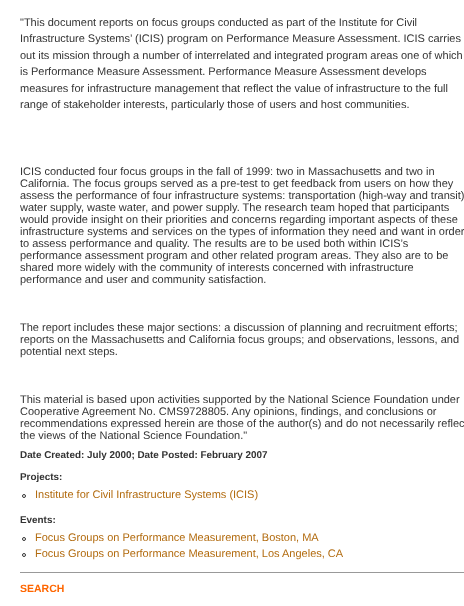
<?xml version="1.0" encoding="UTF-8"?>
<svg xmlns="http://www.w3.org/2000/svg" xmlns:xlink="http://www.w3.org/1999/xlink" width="464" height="606">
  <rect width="100%" height="100%" fill="#ffffff" />
  <circle cx="24" cy="496" r="1.5" fill="none" stroke="#333333" />
  <circle cx="24" cy="539" r="1.5" fill="none" stroke="#333333" />
  <circle cx="24" cy="555" r="1.5" fill="none" stroke="#333333" />
  <rect x="20" y="572" width="444" height="1" fill="#999999" />
  <text x="20" y="26" style="font-family: Liberation Sans; font-size: 11px; fill: #333333">"This document reports on focus groups conducted as part of the Institute for Civil</text>
  <text x="20" y="42" style="font-family: Liberation Sans; font-size: 11px; fill: #333333">Infrastructure Systems’ (ICIS) program on Performance Measure Assessment. ICIS carries</text>
  <text x="20" y="59" style="font-family: Liberation Sans; font-size: 11px; fill: #333333">out its mission through a number of interrelated and integrated program areas one of which</text>
  <text x="20" y="75" style="font-family: Liberation Sans; font-size: 11px; fill: #333333">is Performance Measure Assessment. Performance Measure Assessment develops</text>
  <text x="20" y="92" style="font-family: Liberation Sans; font-size: 11px; fill: #333333">measures for infrastructure management that reflect the value of infrastructure to the full</text>
  <text x="20" y="108" style="font-family: Liberation Sans; font-size: 11px; fill: #333333">range of stakeholder interests, particularly those of users and host communities.</text>
  <text x="20" y="175" style="font-family: Liberation Sans; font-size: 11px; fill: #333333">ICIS conducted four focus groups in the fall of 1999: two in Massachusetts and two in</text>
  <text x="20" y="187" style="font-family: Liberation Sans; font-size: 11px; fill: #333333">California. The focus groups served as a pre-test to get feedback from users on how they</text>
  <text x="20" y="199" style="font-family: Liberation Sans; font-size: 11px; fill: #333333">assess the performance of four infrastructure systems: transportation (high-way and transit)</text>
  <text x="20" y="211" style="font-family: Liberation Sans; font-size: 11px; fill: #333333">water supply, waste water, and power supply. The research team hoped that participants</text>
  <text x="20" y="223" style="font-family: Liberation Sans; font-size: 11px; fill: #333333">would provide insight on their priorities and concerns regarding important aspects of these</text>
  <text x="20" y="235" style="font-family: Liberation Sans; font-size: 11px; fill: #333333">infrastructure systems and services on the types of information they need and want in order</text>
  <text x="20" y="247" style="font-family: Liberation Sans; font-size: 11px; fill: #333333">to assess performance and quality. The results are to be used both within ICIS’s</text>
  <text x="20" y="259" style="font-family: Liberation Sans; font-size: 11px; fill: #333333">performance assessment program and other related program areas. They also are to be</text>
  <text x="20" y="271" style="font-family: Liberation Sans; font-size: 11px; fill: #333333">shared more widely with the community of interests concerned with infrastructure</text>
  <text x="20" y="283" style="font-family: Liberation Sans; font-size: 11px; fill: #333333">performance and user and community satisfaction.</text>
  <text x="20" y="331" style="font-family: Liberation Sans; font-size: 11px; fill: #333333">The report includes these major sections: a discussion of planning and recruitment efforts;</text>
  <text x="20" y="343" style="font-family: Liberation Sans; font-size: 11px; fill: #333333">reports on the Massachusetts and California focus groups; and observations, lessons, and</text>
  <text x="20" y="355" style="font-family: Liberation Sans; font-size: 11px; fill: #333333">potential next steps.</text>
  <text x="20" y="403" style="font-family: Liberation Sans; font-size: 11px; fill: #333333">This material is based upon activities supported by the National Science Foundation under</text>
  <text x="20" y="415" style="font-family: Liberation Sans; font-size: 11px; fill: #333333">Cooperative Agreement No. CMS9728805. Any opinions, findings, and conclusions or</text>
  <text x="20" y="427" style="font-family: Liberation Sans; font-size: 11px; fill: #333333">recommendations expressed herein are those of the author(s) and do not necessarily reflec</text>
  <text x="20" y="439" style="font-family: Liberation Sans; font-size: 11px; fill: #333333">the views of the National Science Foundation."</text>
  <text x="20" y="458" style="font-family: Liberation Sans; font-size: 9.9px; font-weight: bold; fill: #333333">Date Created: July 2000; Date Posted: February 2007</text>
  <text x="20" y="480" style="font-family: Liberation Sans; font-size: 9.9px; font-weight: bold; fill: #333333">Projects:</text>
  <text x="35" y="498" style="font-family: Liberation Sans; font-size: 11px; fill: #b26b0f">Institute for Civil Infrastructure Systems (ICIS)</text>
  <text x="20" y="523" style="font-family: Liberation Sans; font-size: 9.9px; font-weight: bold; fill: #333333">Events:</text>
  <text x="35" y="541" style="font-family: Liberation Sans; font-size: 11px; fill: #b26b0f">Focus Groups on Performance Measurement, Boston, MA</text>
  <text x="35" y="557" style="font-family: Liberation Sans; font-size: 11px; fill: #b26b0f">Focus Groups on Performance Measurement, Los Angeles, CA</text>
  <text x="20" y="592" style="font-family: Liberation Sans; font-size: 10.5px; font-weight: bold; fill: #ff6600">SEARCH</text>
</svg>
